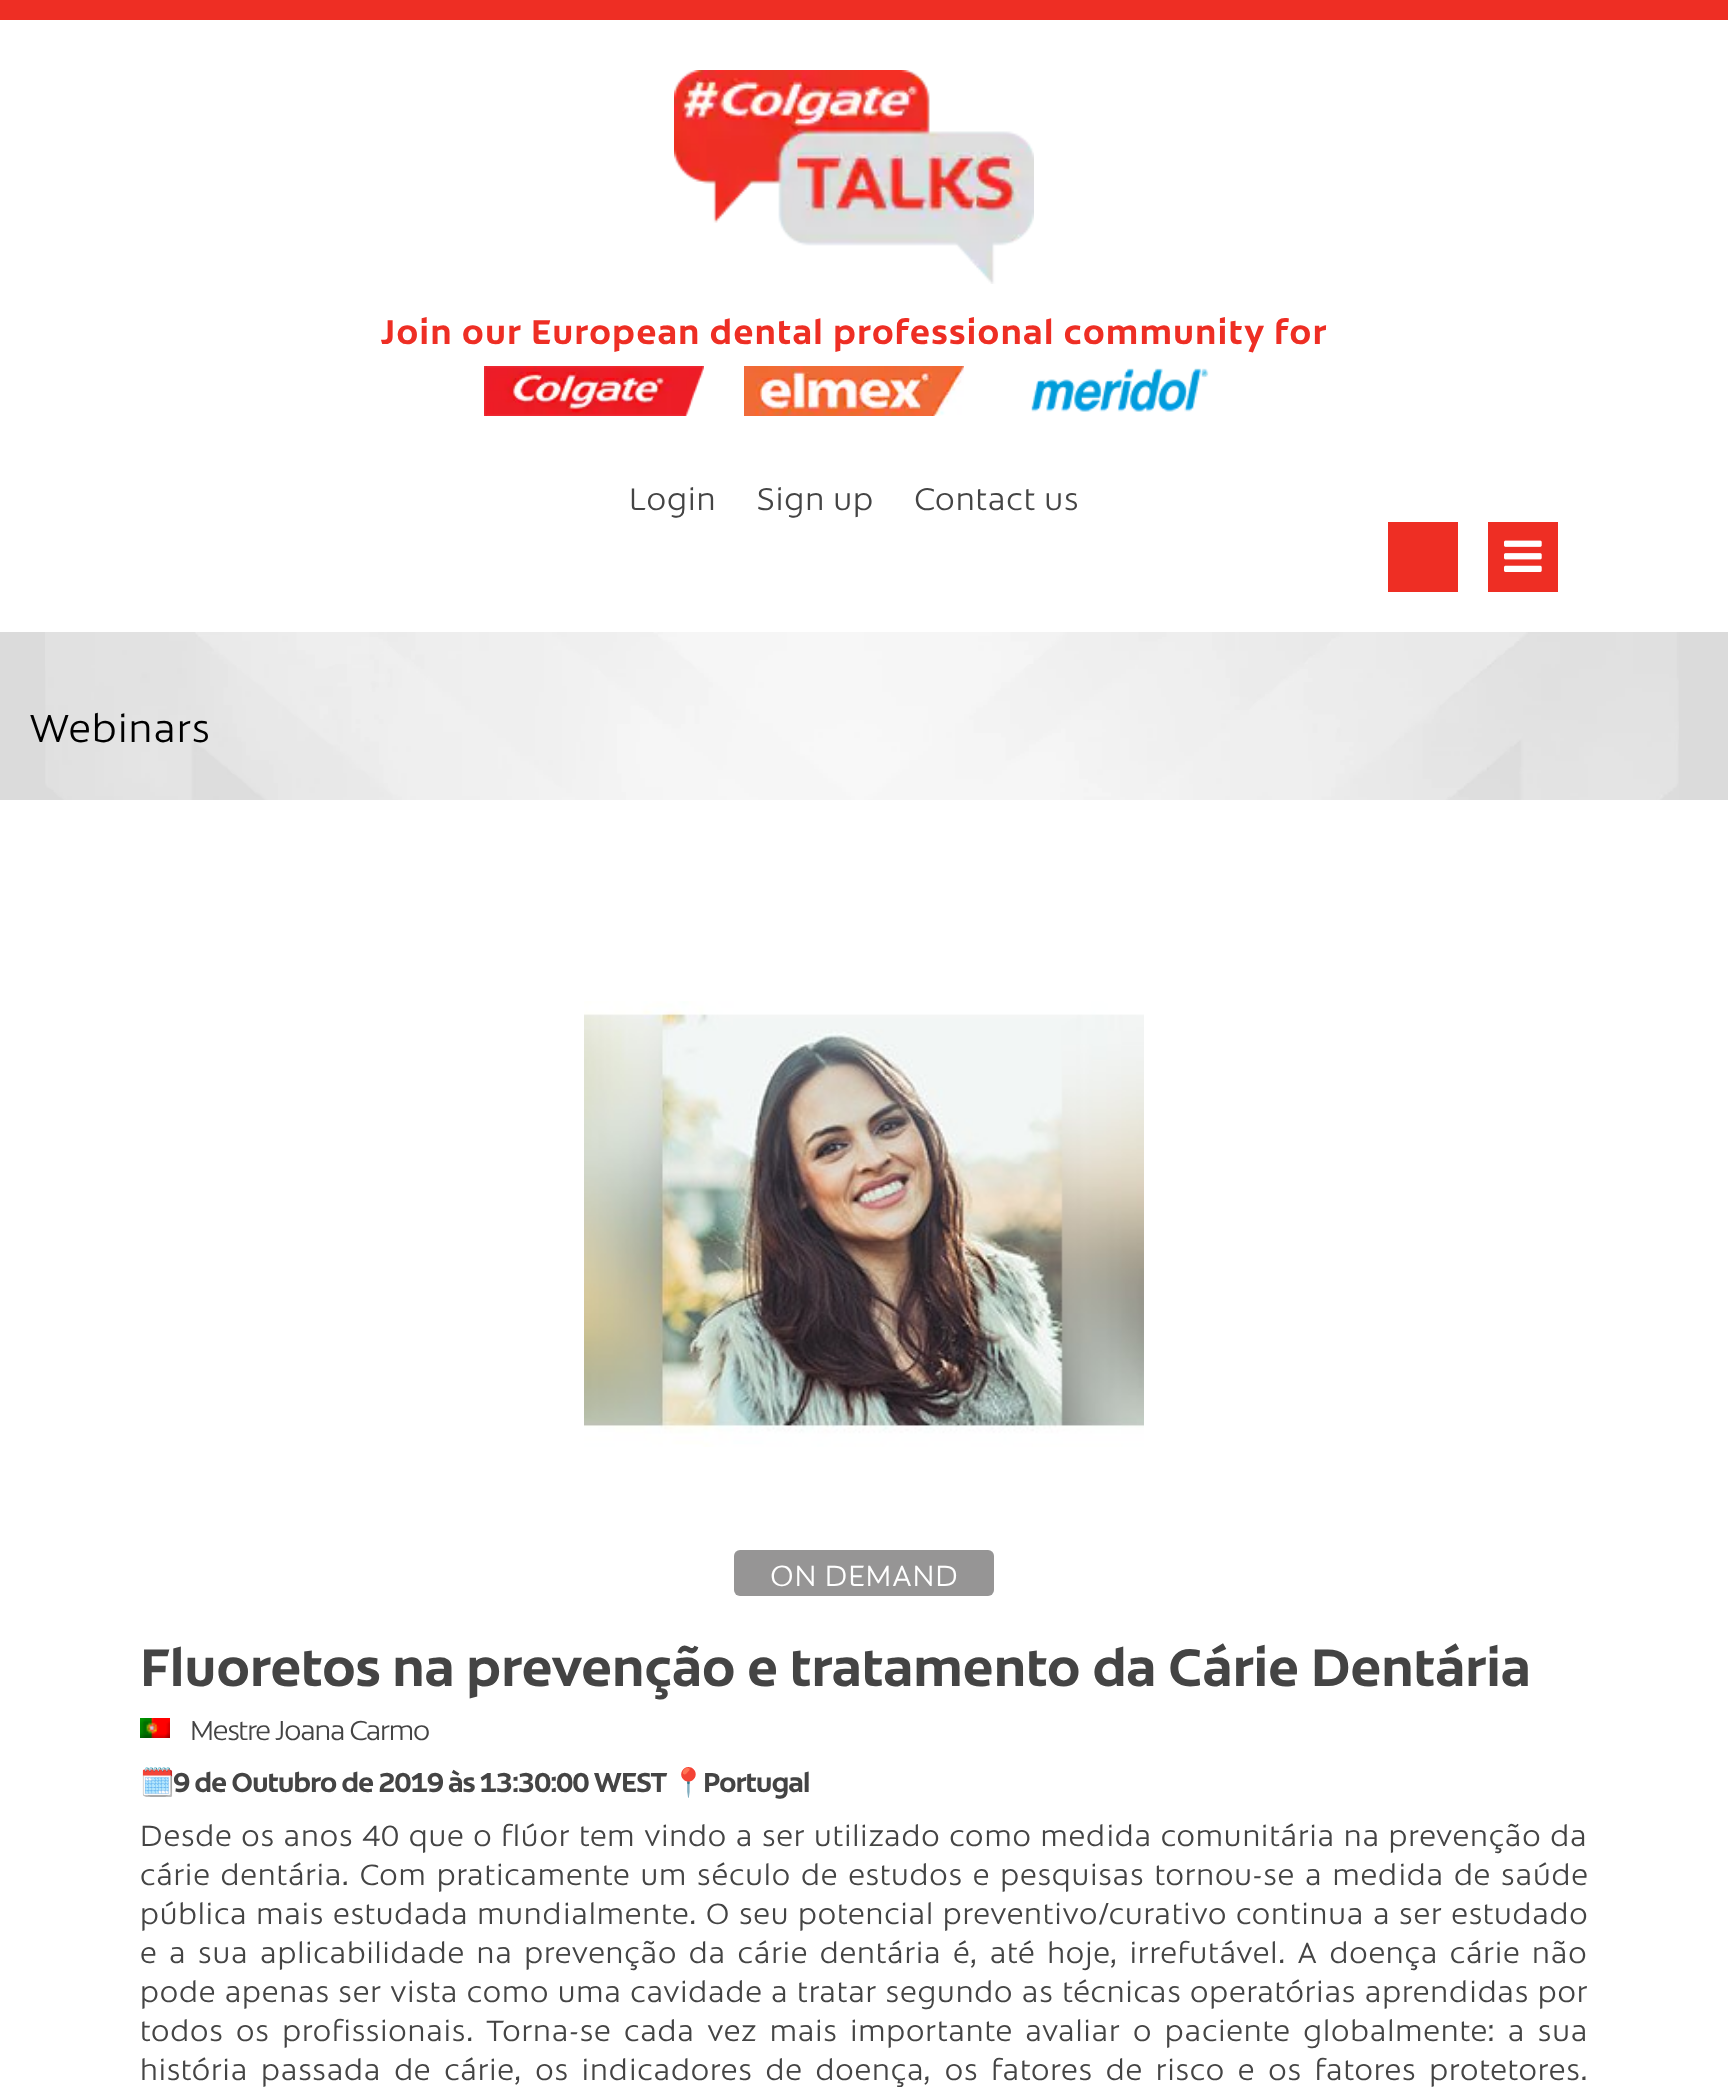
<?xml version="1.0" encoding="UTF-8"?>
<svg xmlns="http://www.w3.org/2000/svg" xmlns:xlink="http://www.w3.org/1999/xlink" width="1728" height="2087">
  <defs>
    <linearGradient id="g1" gradientUnits="userSpaceOnUse" x1="864" y1="632" x2="864" y2="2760"><stop offset="0.3" stop-color="#dbdbdb" /><stop offset="1" stop-color="#f2f2f2" /></linearGradient>
  </defs>
  <rect width="100%" height="100%" fill="#ffffff" />
  <rect width="1728" height="20" fill="#ee2e24" />
  <image x="674" y="70" width="360" height="214" xlink:href="image1.png" />
  <image x="484" y="366" width="220" height="50" xlink:href="image2.png" />
  <image x="744" y="366" width="220" height="50" xlink:href="image3.png" />
  <image x="1031" y="368" width="178" height="44" xlink:href="image4.png" />
  <rect x="1388" y="522" width="70" height="70" fill="#ee2e24" />
  <rect x="1488" y="522" width="70" height="70" fill="#ee2e24" />
  <image x="1504" y="540" width="38" height="32" xlink:href="image5.png" />
  <rect y="632" width="1728" height="168" fill="url(#g1)" />
  <image x="45" y="632" width="1634" height="168" xlink:href="image6.png" />
  <image x="584" y="1001" width="560" height="446" xlink:href="image7.png" />
  <rect x="734" y="1550" width="260" height="46" rx="6" fill="#969595" />
  <image x="140" y="1718" width="30" height="20" xlink:href="image8.png" />
  <text x="380" y="344" style="font-family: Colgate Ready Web; font-size: 35.2px; font-weight: bold; fill: #ee2e24">Join our European dental professional community for</text>
  <text x="629" y="510" style="font-family: Colgate Ready Web; font-size: 32px; font-weight: 300; fill: #444444">Login</text>
  <text x="757" y="510" style="font-family: Colgate Ready Web; font-size: 32px; font-weight: 300; fill: #444444">Sign up</text>
  <text x="914" y="510" style="font-family: Colgate Ready Web; font-size: 32px; font-weight: 300; fill: #444444">Contact us</text>
  <text x="30" y="742" style="font-family: Colgate Ready Web; font-size: 40px; font-weight: 300; fill: #000000">Webinars</text>
  <text x="770" y="1586" style="font-family: Colgate Ready Web; font-size: 30px; font-weight: 300; fill: #ffffff">ON DEMAND</text>
  <text x="140" y="1686" style="font-family: Colgate Ready Web; font-size: 54px; font-weight: bold; letter-spacing: -2px; fill: #444444">Fluoretos na prevenção e tratamento da Cárie Dentária</text>
  <text x="190" y="1740" style="font-family: Colgate Ready Web; font-size: 28px; font-weight: 300; letter-spacing: -2px; fill: #444444">Mestre Joana Carmo</text>
  <text x="140" y="1792" style="font-family: Noto Color Emoji; font-size: 28px; font-weight: bold; letter-spacing: -2px; fill: #444444">🗓</text>
  <text x="173" y="1792" style="font-family: Colgate Ready Web; font-size: 28px; font-weight: bold; letter-spacing: -2px; fill: #444444">9 de Outubro de 2019 às 13:30:00 WEST</text>
  <text x="671" y="1792" style="font-family: Noto Color Emoji; font-size: 28px; font-weight: bold; letter-spacing: -2px; fill: #444444">📍</text>
  <text x="703" y="1792" style="font-family: Colgate Ready Web; font-size: 28px; font-weight: bold; letter-spacing: -2px; fill: #444444">Portugal</text>
  <text x="140" y="1846" word-spacing="1.25" style="font-family: Colgate Ready Web; font-size: 30px; font-weight: 300; fill: #444444">Desde os anos 40 que o flúor tem vindo a ser utilizado como medida comunitária na prevenção da</text>
  <text x="140" y="1885" word-spacing="2.5" style="font-family: Colgate Ready Web; font-size: 30px; font-weight: 300; fill: #444444">cárie dentária. Com praticamente um século de estudos e pesquisas tornou-se a medida de saúde</text>
  <text x="140" y="1924" word-spacing="1.25" style="font-family: Colgate Ready Web; font-size: 30px; font-weight: 300; fill: #444444">pública mais estudada mundialmente. O seu potencial preventivo/curativo continua a ser estudado</text>
  <text x="140" y="1963" word-spacing="4.1" style="font-family: Colgate Ready Web; font-size: 30px; font-weight: 300; fill: #444444">e a sua aplicabilidade na prevenção da cárie dentária é, até hoje, irrefutável. A doença cárie não</text>
  <text x="140" y="2002" word-spacing="1" style="font-family: Colgate Ready Web; font-size: 30px; font-weight: 300; fill: #444444">pode apenas ser vista como uma cavidade a tratar segundo as técnicas operatórias aprendidas por</text>
  <text x="140" y="2041" word-spacing="5" style="font-family: Colgate Ready Web; font-size: 30px; font-weight: 300; fill: #444444">todos os profissionais. Torna-se cada vez mais importante avaliar o paciente globalmente: a sua</text>
  <text x="140" y="2080" word-spacing="5.4" style="font-family: Colgate Ready Web; font-size: 30px; font-weight: 300; fill: #444444">história passada de cárie, os indicadores de doença, os fatores de risco e os fatores protetores.</text>
</svg>
